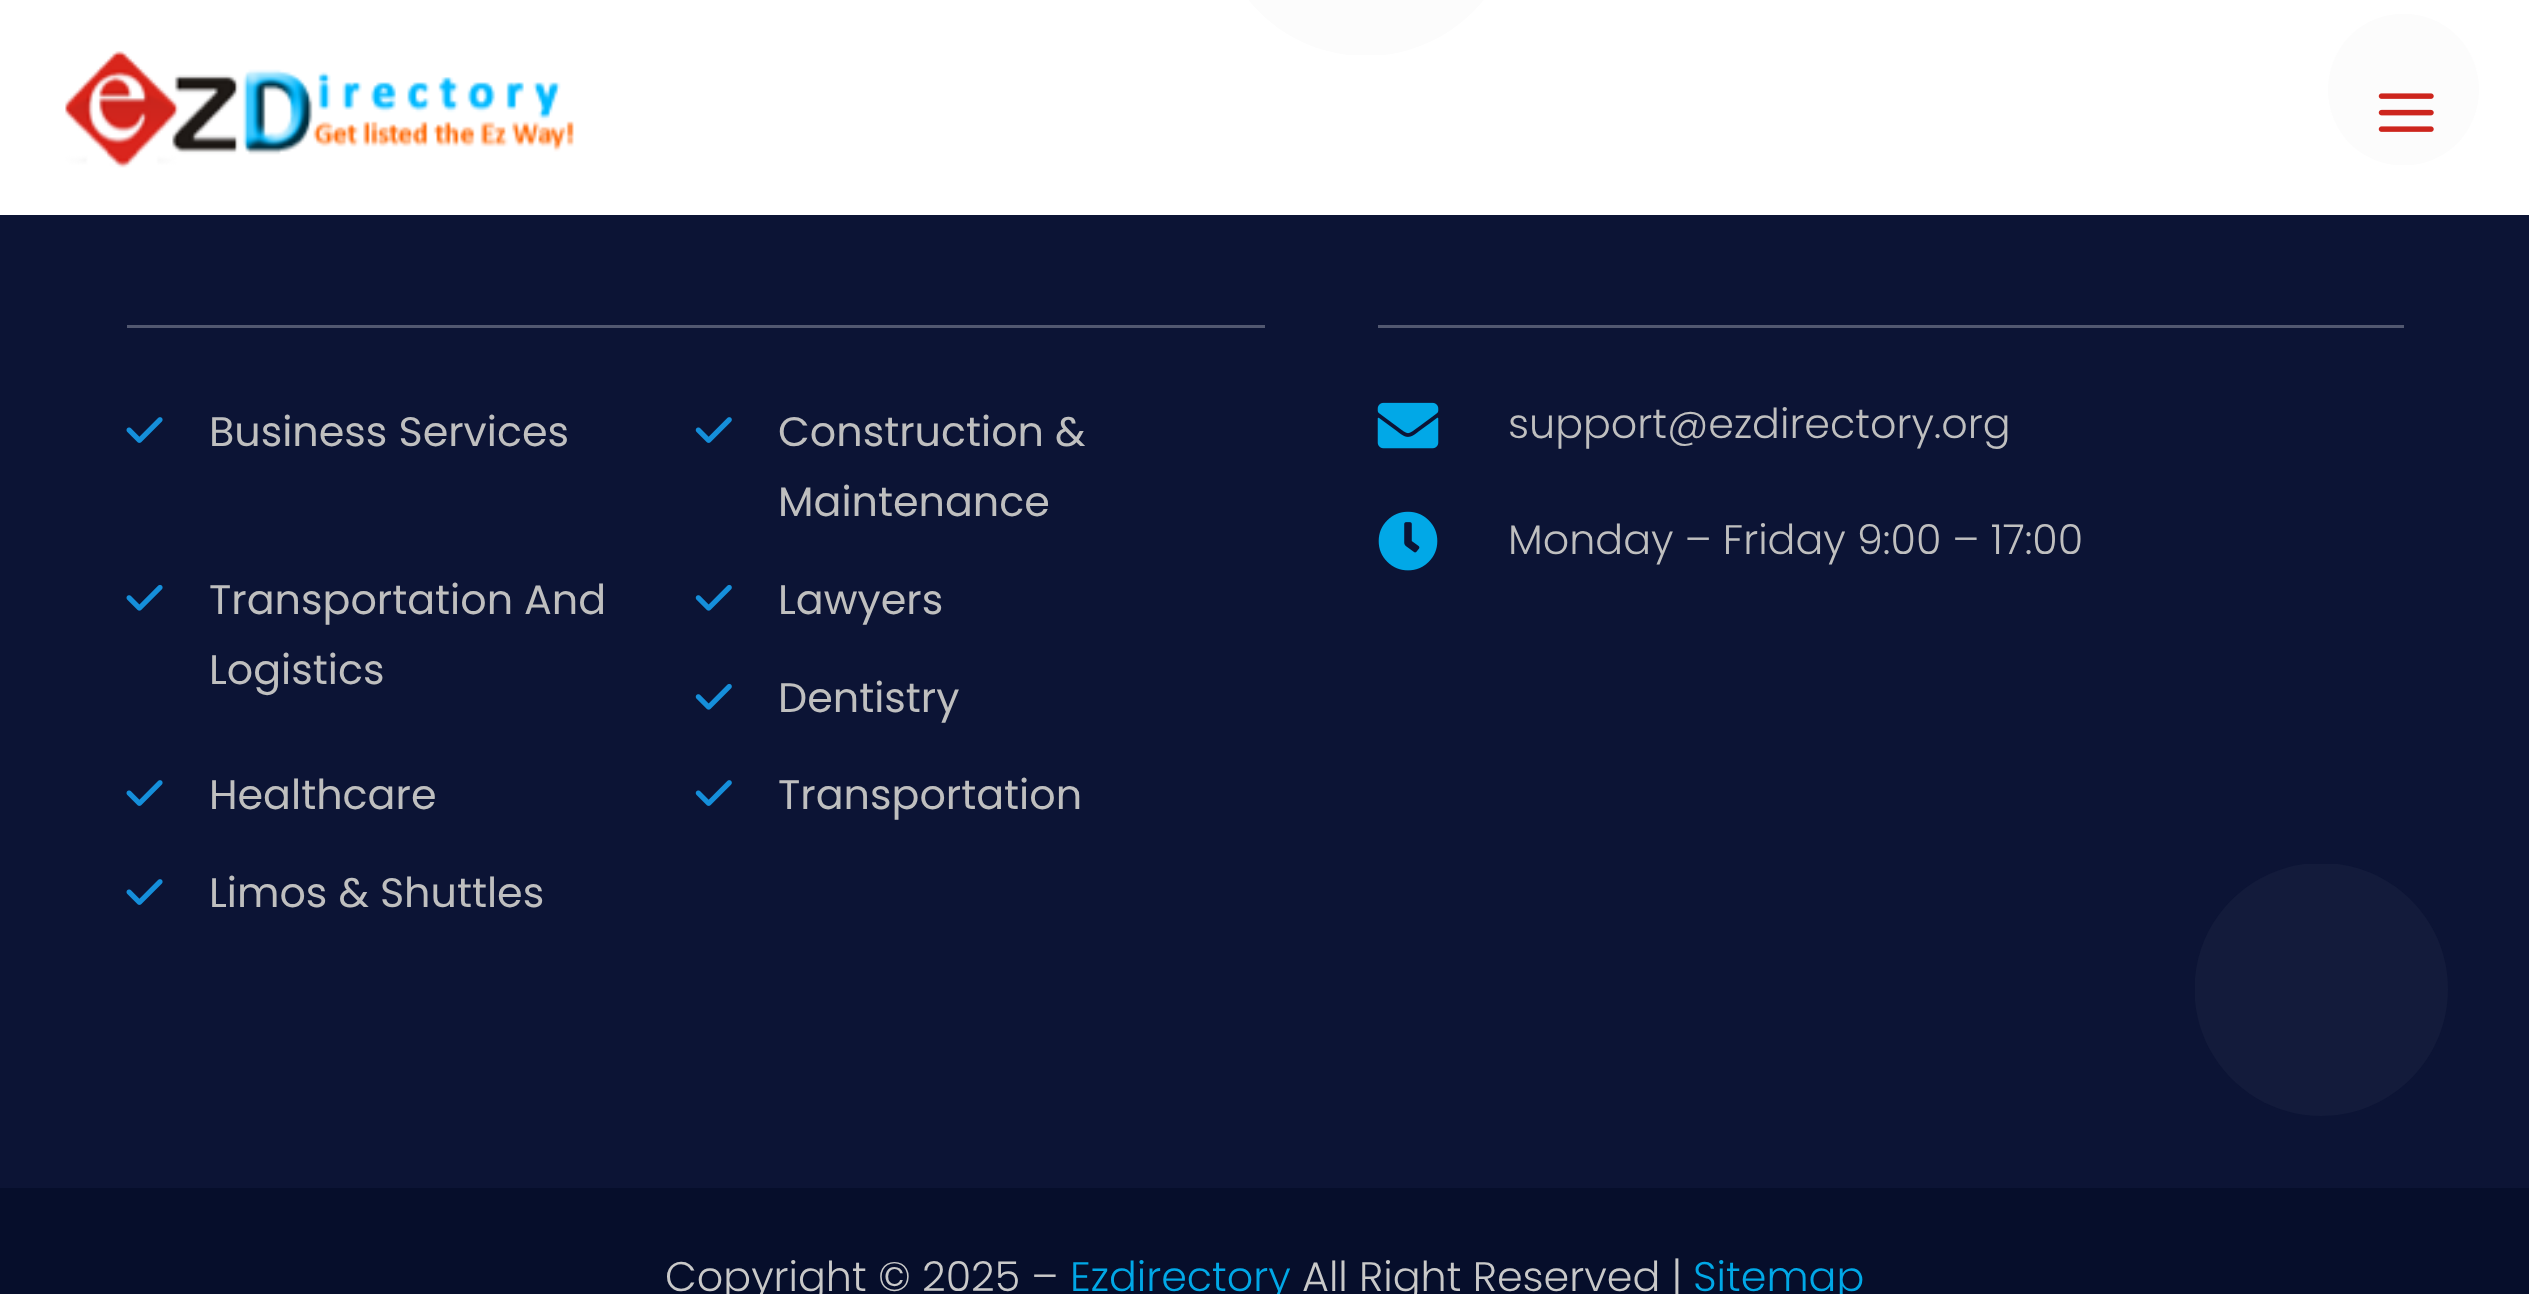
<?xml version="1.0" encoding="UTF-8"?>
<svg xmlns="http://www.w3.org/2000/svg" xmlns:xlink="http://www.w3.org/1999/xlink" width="2529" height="1294">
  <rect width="100%" height="100%" fill="#0c1435" />
  <rect width="2529" height="215" fill="#ffffff" />
  <path d="M 1216 -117 c 10 -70 67 -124 138 -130 h 25 c 78 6 139 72 139 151 c 0 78 -59 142 -134 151 h -36 c -68 -8 -122 -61 -132 -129 z" fill="#fcfcfc" />
  <path d="M 2395 165 c -38 -4 -67 -36 -67 -75 c 0 -40 30 -73 69 -76 h 13 c 39 3 69 36 69 76 c 0 39 -29 71 -67 75 z" fill="#fcfcfc" />
  <image x="65" y="51" width="509" height="117" xlink:href="image1.png" />
  <image x="2378" y="93" width="56" height="39" xlink:href="image2.png" />
  <rect x="127" y="325" width="1138" height="3" fill="#525870" />
  <image x="126" y="417" width="37" height="26" xlink:href="image3.png" />
  <image x="695" y="417" width="37" height="26" xlink:href="image4.png" />
  <image x="126" y="584" width="37" height="27" xlink:href="image5.png" />
  <image x="695" y="584" width="37" height="27" xlink:href="image6.png" />
  <image x="695" y="683" width="37" height="27" xlink:href="image6.png" />
  <image x="126" y="780" width="37" height="26" xlink:href="image3.png" />
  <image x="695" y="780" width="37" height="26" xlink:href="image4.png" />
  <image x="126" y="879" width="37" height="26" xlink:href="image3.png" />
  <rect x="1378" y="325" width="1026" height="3" fill="#525870" />
  <image x="1377" y="402" width="62" height="47" xlink:href="image7.png" />
  <image x="1378" y="511" width="60" height="60" xlink:href="image8.png" />
  <path d="M 2195 978 c 5 -59 51 -106 109 -114 h 34 c 62 8 110 61 110 125 c 0 70 -57 127 -127 127 c -66 0 -120 -51 -126 -115 z" fill="#131b3b" />
  <rect y="1188" width="2529" height="106" fill="#060e2b" />
  <text x="209" y="446" style="font-family: Poppins; font-size: 41.25px; fill: #bfbfbf">Business Services</text>
  <text x="778" y="446" style="font-family: Poppins; font-size: 41.25px; fill: #bfbfbf">Construction &amp;</text>
  <text x="778" y="516" style="font-family: Poppins; font-size: 41.25px; fill: #bfbfbf">Maintenance</text>
  <text x="209" y="614" style="font-family: Poppins; font-size: 41.25px; fill: #bfbfbf">Transportation And</text>
  <text x="209" y="684" style="font-family: Poppins; font-size: 41.25px; fill: #bfbfbf">Logistics</text>
  <text x="778" y="614" style="font-family: Poppins; font-size: 41.25px; fill: #bfbfbf">Lawyers</text>
  <text x="778" y="712" style="font-family: Poppins; font-size: 41.25px; fill: #bfbfbf">Dentistry</text>
  <text x="209" y="809" style="font-family: Poppins; font-size: 41.25px; fill: #bfbfbf">Healthcare</text>
  <text x="778" y="809" style="font-family: Poppins; font-size: 41.25px; fill: #bfbfbf">Transportation</text>
  <text x="209" y="907" style="font-family: Poppins; font-size: 41.25px; fill: #bfbfbf">Limos &amp; Shuttles</text>
  <text x="1508" y="438" style="font-family: Poppins; font-size: 41.25px; font-weight: 300; fill: #bfbfbf">support@ezdirectory.org</text>
  <text x="1508" y="554" style="font-family: Poppins; font-size: 41.25px; font-weight: 300; fill: #bfbfbf">Monday – Friday 9:00 – 17:00</text>
  <text x="665" y="1291" style="font-family: Poppins; font-size: 41.25px; font-weight: 300; fill: #c9c9c9">Copyright © 2025 –</text>
  <text x="1070" y="1291" style="font-family: Poppins; font-size: 41.25px; font-weight: 300; fill: #01a8e7">Ezdirectory</text>
  <text x="1302" y="1291" style="font-family: Poppins; font-size: 41.25px; font-weight: 300; fill: #c9c9c9">All Right Reserved |</text>
  <text x="1693" y="1291" style="font-family: Poppins; font-size: 41.25px; font-weight: 300; fill: #01a8e7">Sitemap</text>
</svg>
